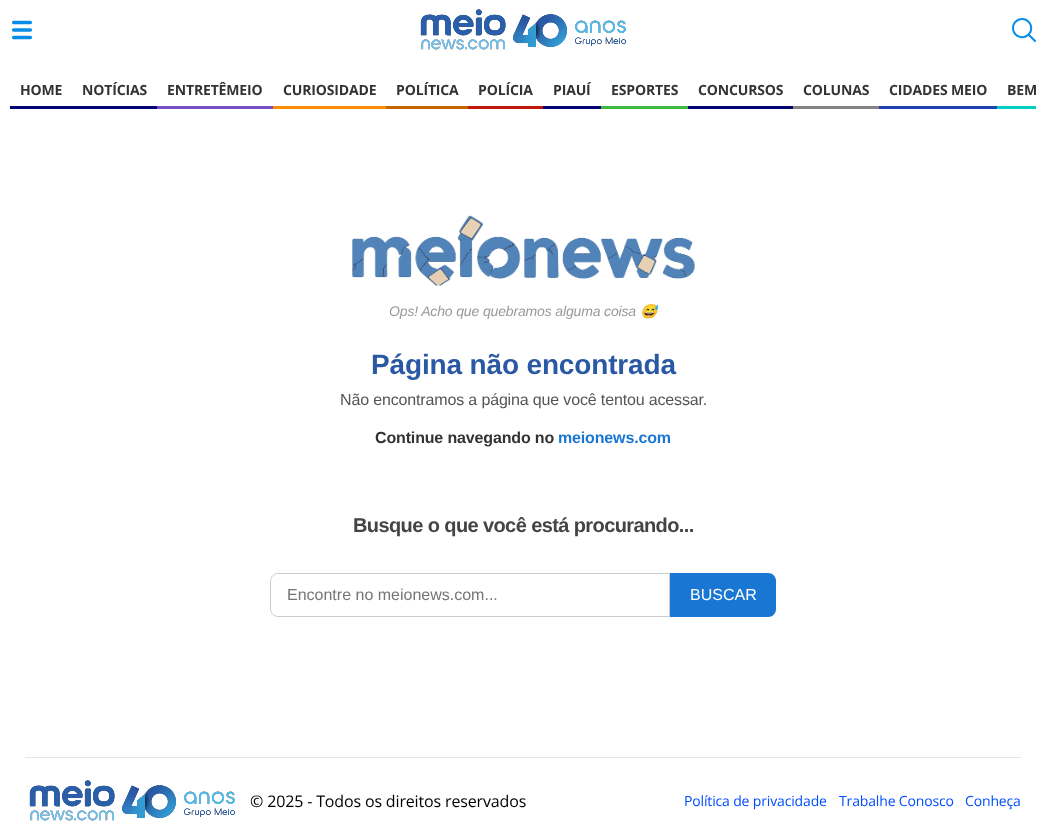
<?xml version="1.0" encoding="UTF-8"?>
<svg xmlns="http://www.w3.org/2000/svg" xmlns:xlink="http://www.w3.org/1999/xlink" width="1046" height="829">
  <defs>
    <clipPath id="clip1"><rect x="10" y="58" width="1026" height="58" /></clipPath>
  </defs>
  <rect width="100%" height="100%" fill="#ffffff" />
  <image x="12" y="20" width="20" height="20" xlink:href="image1.png" />
  <image x="420" y="9" width="206" height="41" xlink:href="image2.png" />
  <image x="1012" y="18" width="24" height="24" xlink:href="image3.png" />
  <rect x="10" y="106" width="147" height="3" fill="#040473" />
  <rect x="157" y="106" width="116" height="3" fill="#754fc3" />
  <rect x="273" y="106" width="113" height="3" fill="#fb8c06" />
  <rect x="386" y="106" width="82" height="3" fill="#c46600" />
  <rect x="468" y="106" width="75" height="3" fill="#c4170c" />
  <rect x="543" y="106" width="58" height="3" fill="#040473" />
  <rect x="601" y="106" width="87" height="3" fill="#3eba44" />
  <rect x="688" y="106" width="105" height="3" fill="#040473" />
  <rect x="793" y="106" width="86" height="3" fill="#848484" />
  <rect x="879" y="106" width="118" height="3" fill="#2042ae" />
  <rect x="997" y="106" width="39" height="3" fill="#02cfc3" />
  <image x="352" y="215" width="343" height="71" xlink:href="image4.png" />
  <path d="M 278 573.5 h 391.5 v 43 h -391.5 c -4 0 -7.5 -3.5 -7.5 -7.5 v -28 c 0 -4 3.5 -7.5 7.5 -7.5 z" fill="none" stroke="#cccccc" />
  <path d="M 670 573 h 98 c 4.5 0 8 3.5 8 8 v 28 c 0 4.5 -3.5 8 -8 8 h -98 z" fill="#1976d2" />
  <rect x="25" y="757" width="996" height="1" fill="#e5e5e5" />
  <image x="29" y="780" width="206" height="41" xlink:href="image2.png" />
  <text x="20" y="95" style="font-family: Open Sans; font-size: 14px; font-weight: bold; letter-spacing: -0.15px; fill: #333333">HOME</text>
  <text x="82" y="95" style="font-family: Open Sans; font-size: 14px; font-weight: bold; letter-spacing: -0.15px; fill: #333333">NOTÍCIAS</text>
  <text x="167" y="95" style="font-family: Open Sans; font-size: 14px; font-weight: bold; letter-spacing: -0.15px; fill: #333333">ENTRETÊMEIO</text>
  <text x="283" y="95" style="font-family: Open Sans; font-size: 14px; font-weight: bold; letter-spacing: -0.15px; fill: #333333">CURIOSIDADE</text>
  <text x="396" y="95" style="font-family: Open Sans; font-size: 14px; font-weight: bold; letter-spacing: -0.15px; fill: #333333">POLÍTICA</text>
  <text x="478" y="95" style="font-family: Open Sans; font-size: 14px; font-weight: bold; letter-spacing: -0.15px; fill: #333333">POLÍCIA</text>
  <text x="553" y="95" style="font-family: Open Sans; font-size: 14px; font-weight: bold; letter-spacing: -0.15px; fill: #333333">PIAUÍ</text>
  <text x="611" y="95" style="font-family: Open Sans; font-size: 14px; font-weight: bold; letter-spacing: -0.15px; fill: #333333">ESPORTES</text>
  <text x="698" y="95" style="font-family: Open Sans; font-size: 14px; font-weight: bold; letter-spacing: -0.15px; fill: #333333">CONCURSOS</text>
  <text x="803" y="95" style="font-family: Open Sans; font-size: 14px; font-weight: bold; letter-spacing: -0.15px; fill: #333333">COLUNAS</text>
  <text x="889" y="95" style="font-family: Open Sans; font-size: 14px; font-weight: bold; letter-spacing: -0.15px; fill: #333333">CIDADES MEIO</text>
  <g clip-path="url(#clip1)">
    <text x="1007" y="95" style="font-family: Open Sans; font-size: 14px; font-weight: bold; letter-spacing: -0.15px; fill: #333333">BEM</text>
  </g>
  <text x="389" y="316" style="font-family: Liberation Sans; font-size: 14px; font-style: italic; letter-spacing: -0.15px; fill: #999999">Ops! Acho que quebramos alguma coisa</text>
  <text x="640" y="316" style="font-family: Noto Color Emoji; font-size: 14px; font-style: italic; letter-spacing: -0.15px; fill: #999999">😅</text>
  <text x="371" y="374" style="font-family: Liberation Sans; font-size: 28px; font-weight: bold; letter-spacing: -0.15px; fill: #2958a4">Página não encontrada</text>
  <text x="340" y="405" style="font-family: Liberation Sans; font-size: 16px; letter-spacing: -0.15px; fill: #555555">Não encontramos a página que você tentou acessar.</text>
  <text x="375" y="443" style="font-family: Liberation Sans; font-size: 16px; font-weight: bold; letter-spacing: -0.15px; fill: #333333">Continue navegando no</text>
  <text x="558" y="443" style="font-family: Liberation Sans; font-size: 16px; font-weight: bold; letter-spacing: -0.15px; fill: #1976d2">meionews.com</text>
  <text x="353" y="532" style="font-family: Liberation Sans; font-size: 20px; font-weight: bold; letter-spacing: -0.6px; fill: #444444">Busque o que você está procurando...</text>
  <text x="287" y="600" style="font-family: Liberation Sans; font-size: 16px; fill: #757575">Encontre no meionews.com...</text>
  <text x="690" y="600" style="font-family: Liberation Sans; font-size: 16px; fill: #ffffff">BUSCAR</text>
  <text x="250" y="807" style="font-family: Open Sans; font-size: 16px; letter-spacing: -0.15px; fill: #000000">© 2025 - Todos os direitos reservados</text>
  <text x="684" y="806" style="font-family: Open Sans; font-size: 14px; letter-spacing: -0.15px; fill: #004dff">Política de privacidade</text>
  <text x="839" y="806" style="font-family: Open Sans; font-size: 14px; letter-spacing: -0.15px; fill: #004dff">Trabalhe Conosco</text>
  <text x="965" y="806" style="font-family: Open Sans; font-size: 14px; letter-spacing: -0.15px; fill: #004dff">Conheça</text>
</svg>
